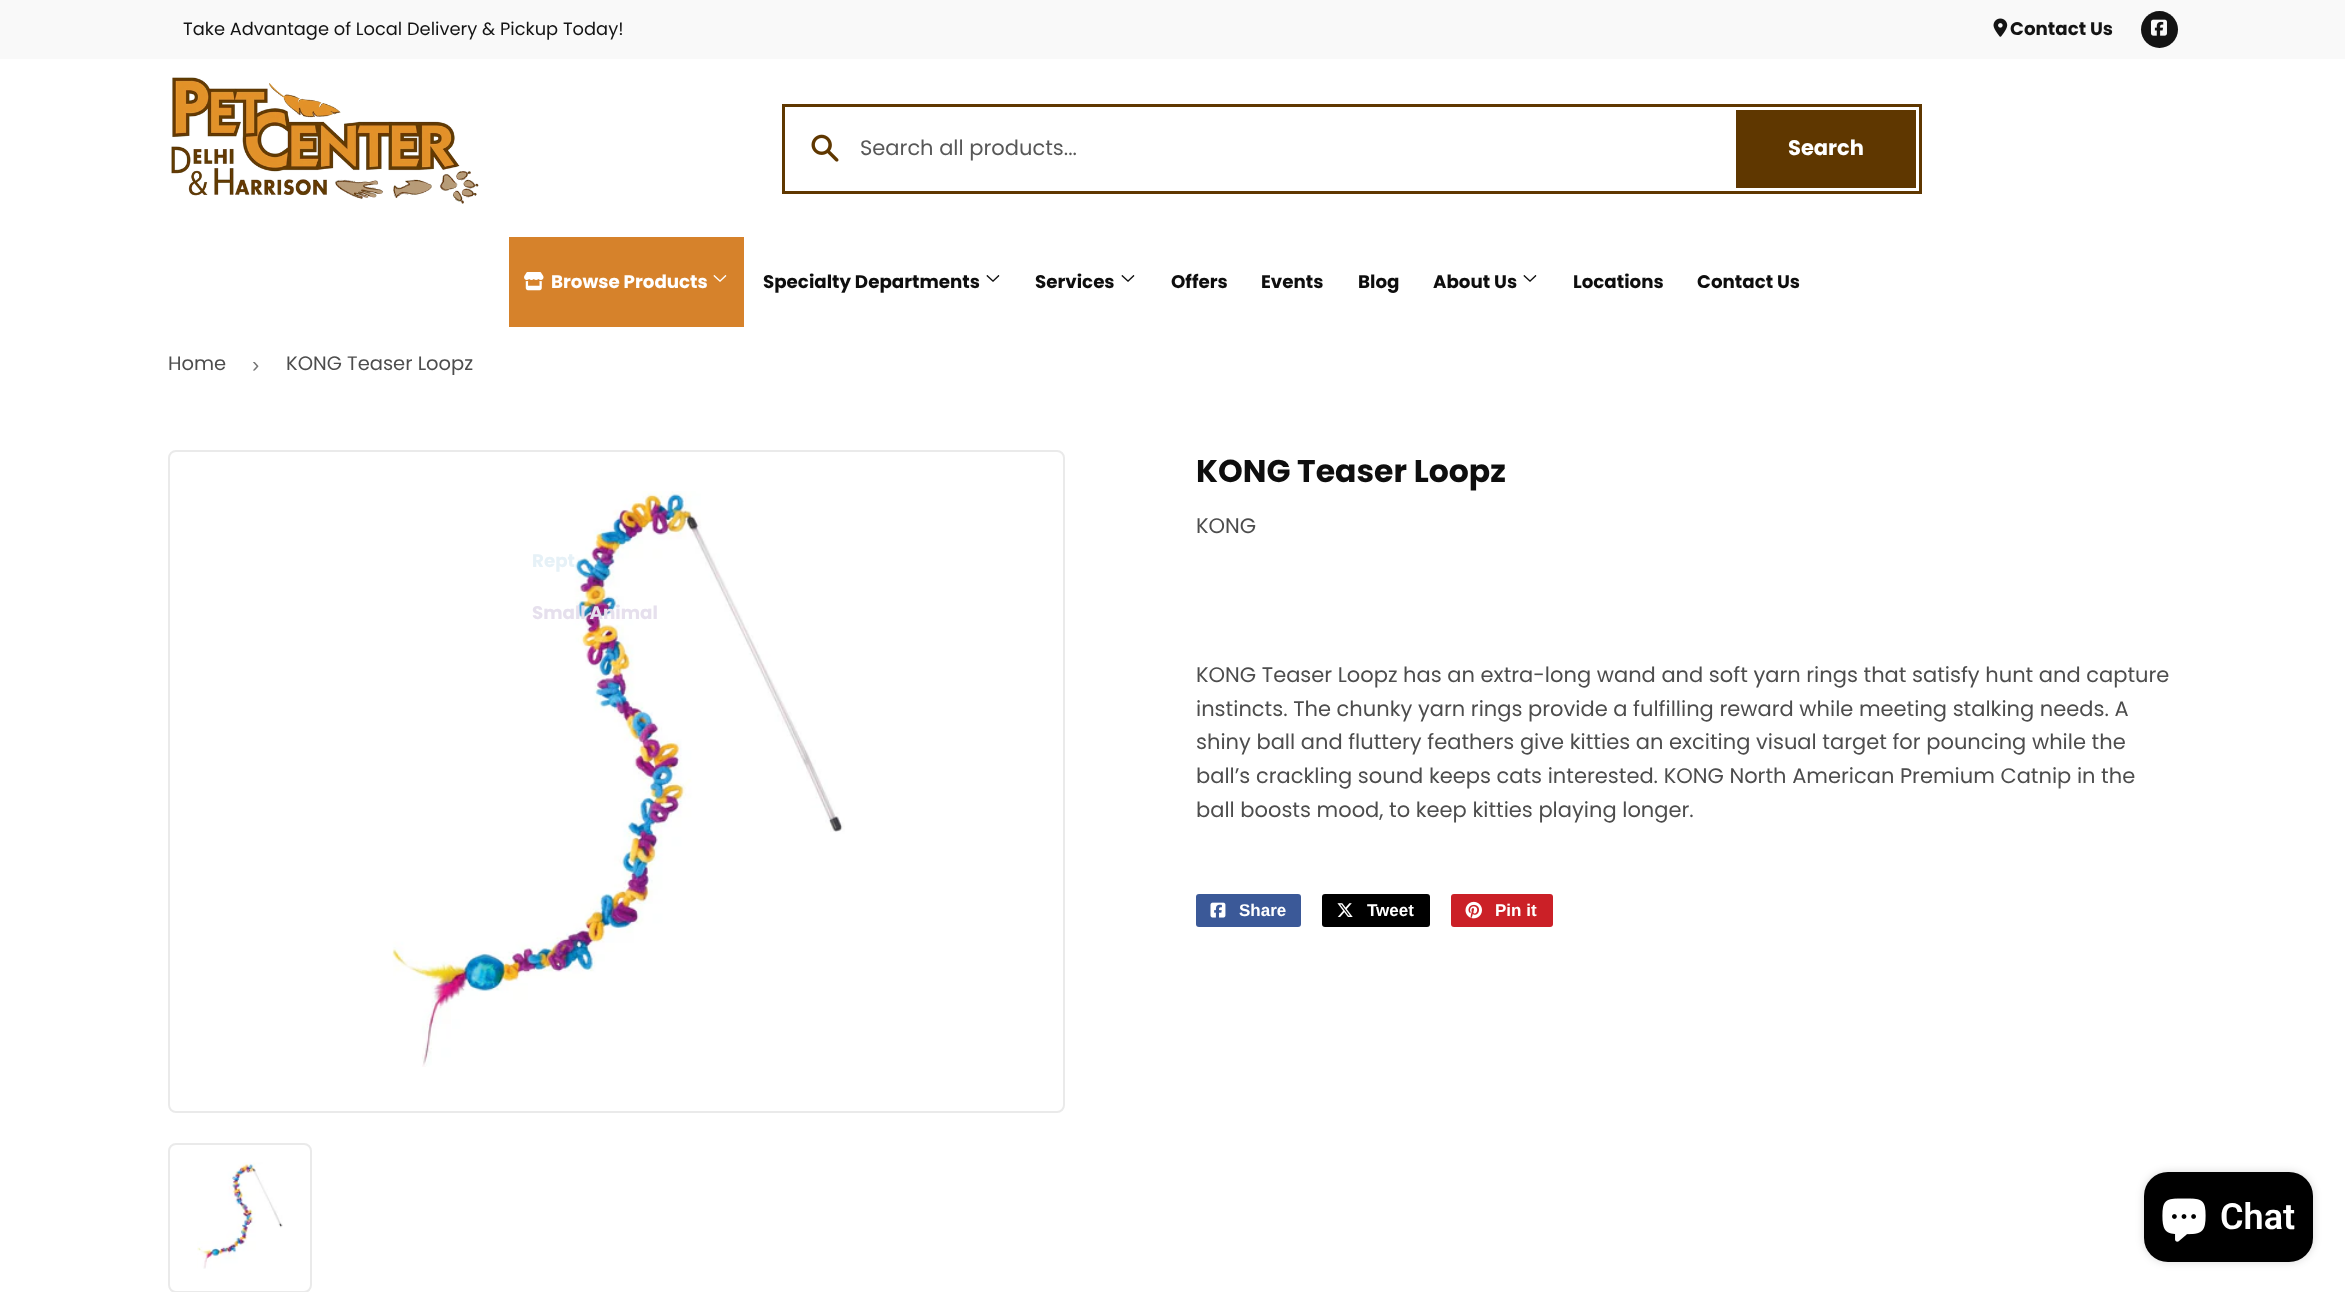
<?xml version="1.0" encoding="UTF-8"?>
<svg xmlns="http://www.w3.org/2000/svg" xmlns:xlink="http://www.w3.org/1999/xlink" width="2345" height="1292">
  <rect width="100%" height="100%" fill="#ffffff" />
  <rect width="2345" height="59" fill="#f9f9f9" />
  <image x="1993" y="18" width="15" height="19" xlink:href="image1.png" />
  <circle cx="2159.5" cy="29.5" r="18.5" fill="#141414" />
  <image x="2151" y="19" width="16" height="17" xlink:href="image2.png" />
  <image x="171" y="77" width="308" height="127" xlink:href="image3.png" />
  <rect x="783.5" y="105.5" width="1137" height="87" fill="none" stroke="#5f3700" stroke-width="3" />
  <image x="811" y="134" width="28" height="28" xlink:href="image4.png" />
  <rect x="1736" y="110" width="180" height="78" fill="#5f3700" />
  <rect x="509" y="237" width="235" height="90" fill="#d6822b" />
  <image x="524" y="272" width="20" height="19" xlink:href="image5.png" />
  <image x="713" y="275" width="14" height="7" xlink:href="image6.png" />
  <image x="986" y="275" width="14" height="7" xlink:href="image7.png" />
  <image x="1121" y="275" width="14" height="7" xlink:href="image7.png" />
  <image x="1523" y="275" width="14" height="7" xlink:href="image7.png" />
  <rect x="169" y="451" width="895" height="661" rx="7" fill="none" stroke="#eaeaea" stroke-width="2" />
  <image x="392" y="491" width="453" height="576" xlink:href="image8.png" />
  <rect x="169" y="1144" width="142" height="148" rx="7" fill="none" stroke="#eaeaea" stroke-width="2" />
  <image x="197" y="1162" width="86" height="107" xlink:href="image9.png" />
  <rect x="1196" y="894" width="105" height="33" rx="3" fill="#3b5998" />
  <image x="1210" y="902" width="16" height="16" xlink:href="image10.png" />
  <rect x="1322" y="894" width="108" height="33" rx="3" fill="#000000" />
  <image x="1337" y="903" width="16" height="14" xlink:href="image11.png" />
  <rect x="1451" y="894" width="102" height="33" rx="3" fill="#cb2027" />
  <image x="1465" y="901" width="17" height="18" xlink:href="image12.png" />
  <rect x="2144" y="1172" width="169" height="90" rx="24" fill="#000000" fill-opacity="0.15" filter="blur(4px)" />
  <rect x="2144" y="1172" width="169" height="90" rx="24" fill="#000000" />
  <image x="2162" y="1198" width="44" height="44" xlink:href="image13.png" />
  <text x="183" y="35" style="font-family: Poppins; font-size: 17.85px; fill: #141414">Take Advantage of Local Delivery &amp; Pickup Today!</text>
  <text x="2010" y="35" style="font-family: Poppins; font-size: 18.25px; font-weight: bold; fill: #141414">Contact Us</text>
  <text x="860" y="155" style="font-family: Poppins; font-size: 21px; fill: #585858">Search all products...</text>
  <text x="1788" y="155" style="font-family: Poppins; font-size: 21px; font-weight: bold; fill: #ffffff">Search</text>
  <text x="551" y="288" style="font-family: Poppins; font-size: 18.25px; font-weight: bold; fill: #ffffff">Browse Products</text>
  <text x="532" y="567" style="font-family: Poppins; font-size: 18.25px; font-weight: bold; fill: #e6f1f7">Rept</text>
  <text x="532" y="619" style="font-family: Poppins; font-size: 18.25px; font-weight: bold; fill: #e6e0ed">Small Animal</text>
  <text x="763" y="288" style="font-family: Poppins; font-size: 18.25px; font-weight: bold; fill: #0e0e0e">Specialty Departments</text>
  <text x="1035" y="288" style="font-family: Poppins; font-size: 18.25px; font-weight: bold; fill: #0e0e0e">Services</text>
  <text x="1171" y="288" style="font-family: Poppins; font-size: 18.25px; font-weight: bold; fill: #0e0e0e">Offers</text>
  <text x="1261" y="288" style="font-family: Poppins; font-size: 18.25px; font-weight: bold; fill: #0e0e0e">Events</text>
  <text x="1358" y="288" style="font-family: Poppins; font-size: 18.25px; font-weight: bold; fill: #0e0e0e">Blog</text>
  <text x="1433" y="288" style="font-family: Poppins; font-size: 18.25px; font-weight: bold; fill: #0e0e0e">About Us</text>
  <text x="1573" y="288" style="font-family: Poppins; font-size: 18.25px; font-weight: bold; fill: #0e0e0e">Locations</text>
  <text x="1697" y="288" style="font-family: Poppins; font-size: 18.25px; font-weight: bold; fill: #0e0e0e">Contact Us</text>
  <text x="168" y="370" style="font-family: Poppins; font-size: 19.5px; fill: #4d4d4d">Home</text>
  <text x="252" y="372" style="font-family: Liberation Sans; font-size: 22px; fill: #767676">›</text>
  <text x="286" y="370" style="font-family: Poppins; font-size: 19.5px; fill: #4d4d4d">KONG Teaser Loopz</text>
  <text x="1196" y="482" style="font-family: Poppins; font-size: 31.5px; font-weight: bold; fill: #0e0e0e">KONG Teaser Loopz</text>
  <text x="1196" y="533" style="font-family: Poppins; font-size: 21px; fill: #4d4d4d">KONG</text>
  <text x="1196" y="682" style="font-family: Poppins; font-size: 21px; fill: #4d4d4d">KONG Teaser Loopz has an extra-long wand and soft yarn rings that satisfy hunt and capture</text>
  <text x="1196" y="716" style="font-family: Poppins; font-size: 21px; fill: #4d4d4d">instincts. The chunky yarn rings provide a fulfilling reward while meeting stalking needs. A</text>
  <text x="1196" y="749" style="font-family: Poppins; font-size: 21px; fill: #4d4d4d">shiny ball and fluttery feathers give kitties an exciting visual target for pouncing while the</text>
  <text x="1196" y="783" style="font-family: Poppins; font-size: 21px; fill: #4d4d4d">ball’s crackling sound keeps cats interested. KONG North American Premium Catnip in the</text>
  <text x="1196" y="817" style="font-family: Poppins; font-size: 21px; fill: #4d4d4d">ball boosts mood, to keep kitties playing longer.</text>
  <text x="1239" y="916" style="font-family: Liberation Sans; font-size: 17px; font-weight: bold; fill: #ffffff">Share</text>
  <text x="1367" y="916" style="font-family: Liberation Sans; font-size: 17px; font-weight: bold; fill: #ffffff">Tweet</text>
  <text x="1495" y="916" style="font-family: Liberation Sans; font-size: 17px; font-weight: bold; fill: #ffffff">Pin it</text>
  <text x="2220" y="1229" style="font-family: Roboto; font-size: 36px; font-weight: 600; fill: #ffffff">Chat</text>
</svg>
